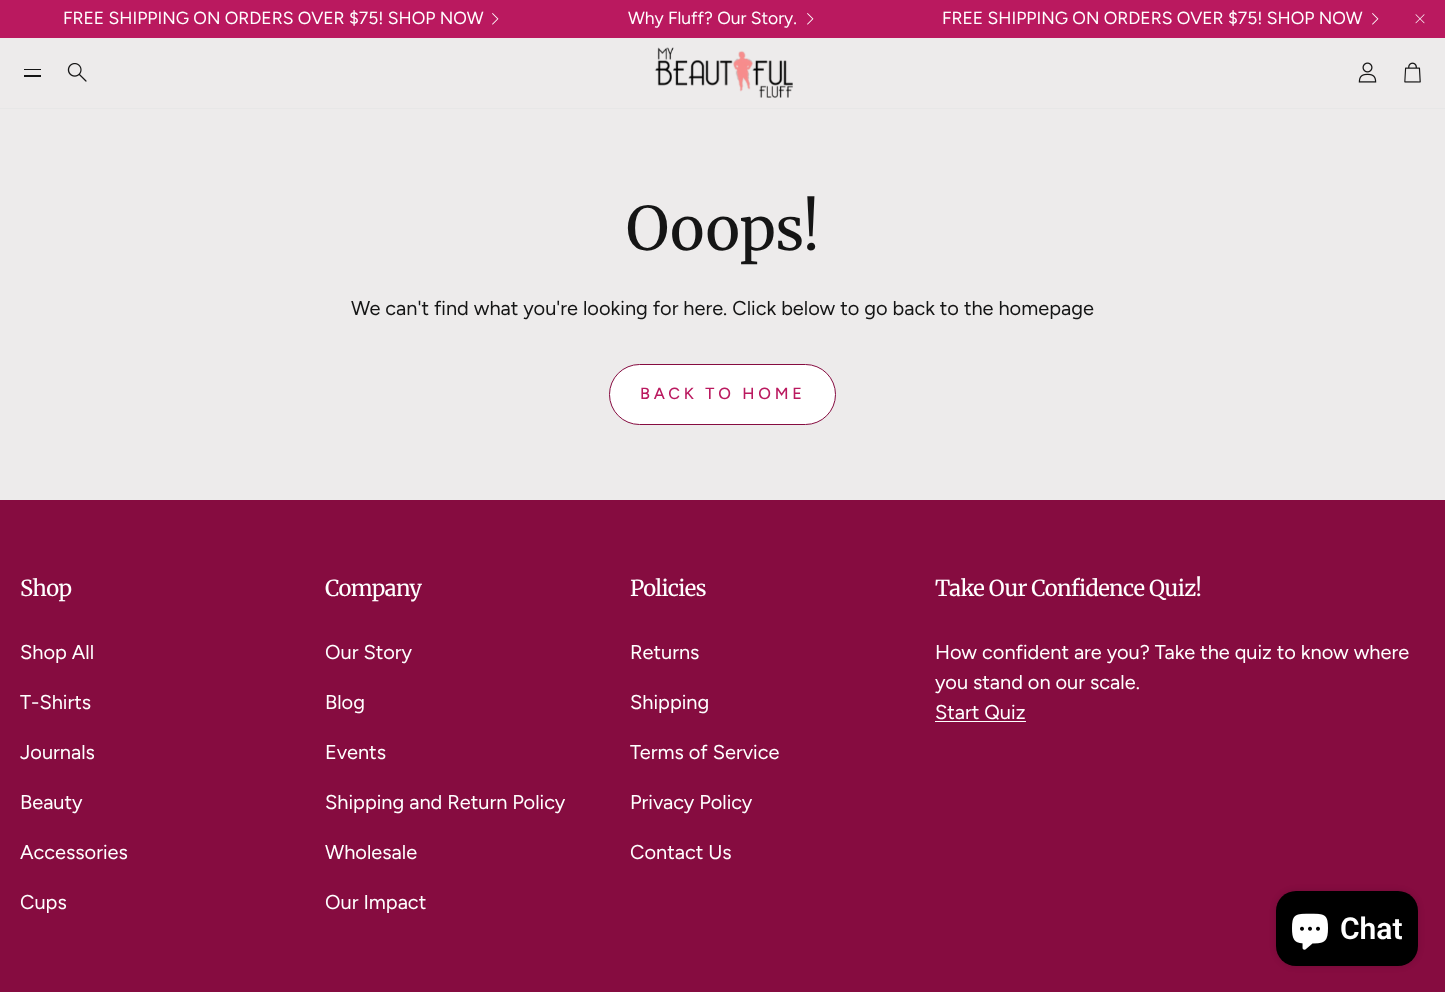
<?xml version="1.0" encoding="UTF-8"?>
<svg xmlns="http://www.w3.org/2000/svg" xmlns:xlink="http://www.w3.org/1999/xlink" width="1445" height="992">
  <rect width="100%" height="100%" fill="#edebeb" />
  <rect width="1445" height="38" fill="#ba195f" />
  <image x="492" y="13" width="7" height="12" xlink:href="image1.png" />
  <image x="807" y="13" width="7" height="12" xlink:href="image1.png" />
  <image x="1372" y="13" width="7" height="12" xlink:href="image1.png" />
  <image x="1415" y="14" width="10" height="10" xlink:href="image2.png" />
  <rect y="108" width="1445" height="1" fill="#e7e7e7" />
  <rect x="24" y="69" width="17" height="1" fill="#151515" />
  <rect x="24" y="75" width="17" height="2" fill="#151515" />
  <image x="67" y="63" width="20" height="19" xlink:href="image3.png" />
  <image x="654" y="47" width="139" height="51" xlink:href="image4.png" />
  <image x="1358" y="62" width="19" height="21" xlink:href="image5.png" />
  <image x="1404" y="62" width="17" height="21" xlink:href="image6.png" />
  <rect x="609.5" y="364.5" width="226" height="60" rx="30" fill="#ffffff" stroke="#860c40" />
  <rect y="500" width="1445" height="492" fill="#860c40" />
  <rect x="935" y="721" width="91" height="1" fill="#ffffff" />
  <rect x="1276" y="891" width="142" height="75" rx="20" fill="#000000" fill-opacity="0.15" filter="blur(3px)" />
  <rect x="1276" y="891" width="142" height="75" rx="20" fill="#000000" />
  <image x="1292" y="913" width="36" height="37" xlink:href="image7.png" />
  <text x="63" y="24" style="font-family: Figtree; font-size: 17.5px; fill: #ffffff">FREE SHIPPING ON ORDERS OVER $75! SHOP NOW</text>
  <text x="628" y="24" style="font-family: Figtree; font-size: 17.5px; fill: #ffffff">Why Fluff? Our Story.</text>
  <text x="942" y="24" style="font-family: Figtree; font-size: 17.5px; fill: #ffffff">FREE SHIPPING ON ORDERS OVER $75! SHOP NOW</text>
  <text x="626" y="250" style="font-family: Merriweather; font-size: 60px; fill: #151515">Ooops!</text>
  <text x="351" y="315" style="font-family: Figtree; font-size: 20px; fill: #151515">We can't find what you're looking for here. Click below to go back to the homepage</text>
  <text x="640" y="399" style="font-family: Figtree; font-size: 16.25px; font-weight: 500; letter-spacing: 3.75px; fill: #ba195f">BACK TO HOME</text>
  <text x="20" y="596" style="font-family: 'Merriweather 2'; font-size: 22px; letter-spacing: -0.6px; fill: #ffffff">Shop</text>
  <text x="20" y="659" style="font-family: Figtree; font-size: 20px; fill: #ffffff">Shop All</text>
  <text x="20" y="709" style="font-family: Figtree; font-size: 20px; fill: #ffffff">T-Shirts</text>
  <text x="20" y="759" style="font-family: Figtree; font-size: 20px; fill: #ffffff">Journals</text>
  <text x="20" y="809" style="font-family: Figtree; font-size: 20px; fill: #ffffff">Beauty</text>
  <text x="20" y="859" style="font-family: Figtree; font-size: 20px; fill: #ffffff">Accessories</text>
  <text x="20" y="909" style="font-family: Figtree; font-size: 20px; fill: #ffffff">Cups</text>
  <text x="325" y="596" style="font-family: 'Merriweather 2'; font-size: 22px; letter-spacing: -0.6px; fill: #ffffff">Company</text>
  <text x="325" y="659" style="font-family: Figtree; font-size: 20px; fill: #ffffff">Our Story</text>
  <text x="325" y="709" style="font-family: Figtree; font-size: 20px; fill: #ffffff">Blog</text>
  <text x="325" y="759" style="font-family: Figtree; font-size: 20px; fill: #ffffff">Events</text>
  <text x="325" y="809" style="font-family: Figtree; font-size: 20px; fill: #ffffff">Shipping and Return Policy</text>
  <text x="325" y="859" style="font-family: Figtree; font-size: 20px; fill: #ffffff">Wholesale</text>
  <text x="325" y="909" style="font-family: Figtree; font-size: 20px; fill: #ffffff">Our Impact</text>
  <text x="630" y="596" style="font-family: 'Merriweather 2'; font-size: 22px; letter-spacing: -0.6px; fill: #ffffff">Policies</text>
  <text x="630" y="659" style="font-family: Figtree; font-size: 20px; fill: #ffffff">Returns</text>
  <text x="630" y="709" style="font-family: Figtree; font-size: 20px; fill: #ffffff">Shipping</text>
  <text x="630" y="759" style="font-family: Figtree; font-size: 20px; fill: #ffffff">Terms of Service</text>
  <text x="630" y="809" style="font-family: Figtree; font-size: 20px; fill: #ffffff">Privacy Policy</text>
  <text x="630" y="859" style="font-family: Figtree; font-size: 20px; fill: #ffffff">Contact Us</text>
  <text x="935" y="596" style="font-family: 'Merriweather 2'; font-size: 22px; letter-spacing: -0.6px; fill: #ffffff">Take Our Confidence Quiz!</text>
  <text x="935" y="659" style="font-family: Figtree; font-size: 20px; fill: #ffffff">How confident are you? Take the quiz to know where</text>
  <text x="935" y="689" style="font-family: Figtree; font-size: 20px; fill: #ffffff">you stand on our scale.</text>
  <text x="935" y="719" style="font-family: Figtree; font-size: 20px; fill: #ffffff">Start Quiz</text>
  <text x="1340" y="939" style="font-family: Roboto; font-size: 30px; font-weight: 600; fill: #ffffff">Chat</text>
</svg>
